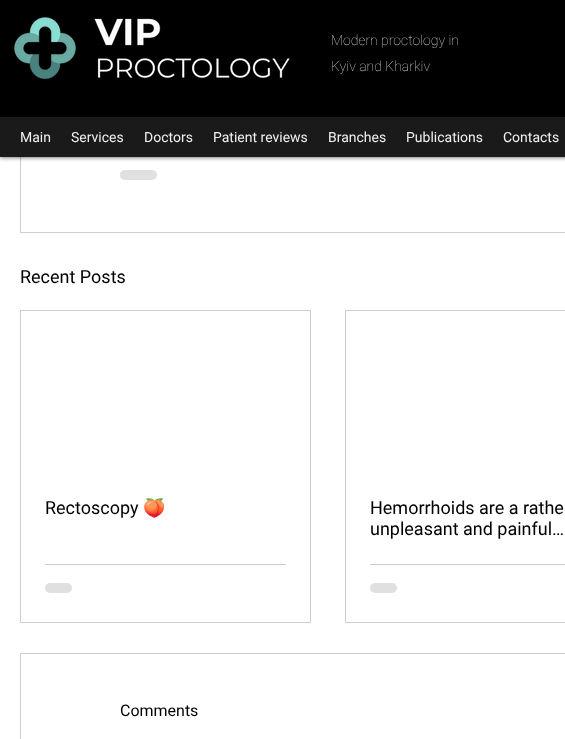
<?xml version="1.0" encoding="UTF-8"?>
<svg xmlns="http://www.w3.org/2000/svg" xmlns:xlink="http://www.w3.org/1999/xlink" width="565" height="739">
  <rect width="100%" height="100%" fill="#ffffff" />
  <rect x="20.5" y="-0.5" width="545" height="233" fill="none" stroke="#cfcfcf" />
  <rect width="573" height="157" fill="#000000" fill-opacity="0.7" filter="blur(2.5px)" />
  <rect width="565" height="117" fill="#000000" />
  <image x="14" y="17" width="276" height="63" xlink:href="image1.png" />
  <rect y="117" width="565" height="40" fill="#1a1a1a" />
  <rect x="120" y="170" width="37" height="10" rx="5" fill="#e0e0e0" />
  <rect x="20.5" y="310.5" width="290" height="312" fill="none" stroke="#cfcfcf" />
  <rect x="45" y="564" width="241" height="1" fill="#cccccc" />
  <rect x="45" y="583" width="27" height="10" rx="5" fill="#e0e0e0" />
  <rect x="345.5" y="310.5" width="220" height="312" fill="none" stroke="#cfcfcf" />
  <rect x="370" y="564" width="195" height="1" fill="#cccccc" />
  <rect x="370" y="583" width="27" height="10" rx="5" fill="#e0e0e0" />
  <rect x="20.5" y="653.5" width="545" height="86" fill="none" stroke="#cfcfcf" />
  <text x="331" y="45" style="font-family: Roboto; font-size: 14px; font-weight: 100; fill: #dbdbdb">Modern proctology in</text>
  <text x="331" y="71" style="font-family: Roboto; font-size: 14px; font-weight: 100; fill: #dbdbdb">Kyiv and Kharkiv</text>
  <text x="20" y="142" style="font-family: Roboto; font-size: 14px; fill: #f0f0f0">Main</text>
  <text x="71" y="142" style="font-family: Roboto; font-size: 14px; fill: #f0f0f0">Services</text>
  <text x="144" y="142" style="font-family: Roboto; font-size: 14px; fill: #f0f0f0">Doctors</text>
  <text x="213" y="142" style="font-family: Roboto; font-size: 14px; fill: #f0f0f0">Patient reviews</text>
  <text x="328" y="142" style="font-family: Roboto; font-size: 14px; fill: #f0f0f0">Branches</text>
  <text x="406" y="142" style="font-family: Roboto; font-size: 14px; fill: #f0f0f0">Publications</text>
  <text x="503" y="142" style="font-family: Roboto; font-size: 14px; fill: #f0f0f0">Contacts</text>
  <text x="20" y="283" style="font-family: Roboto; font-size: 18px; fill: #000000">Recent Posts</text>
  <text x="45" y="514" style="font-family: Roboto; font-size: 18px; fill: #000000">Rectoscopy</text>
  <text x="143" y="514" style="font-family: Noto Color Emoji; font-size: 18px; fill: #000000">🍑</text>
  <text x="370" y="514" style="font-family: Roboto; font-size: 18px; fill: #000000">Hemorrhoids are a rathe</text>
  <text x="370" y="535" style="font-family: Roboto; font-size: 18px; fill: #000000">unpleasant and painful…</text>
  <text x="120" y="716" style="font-family: Roboto; font-size: 16px; fill: #000000">Comments</text>
</svg>
